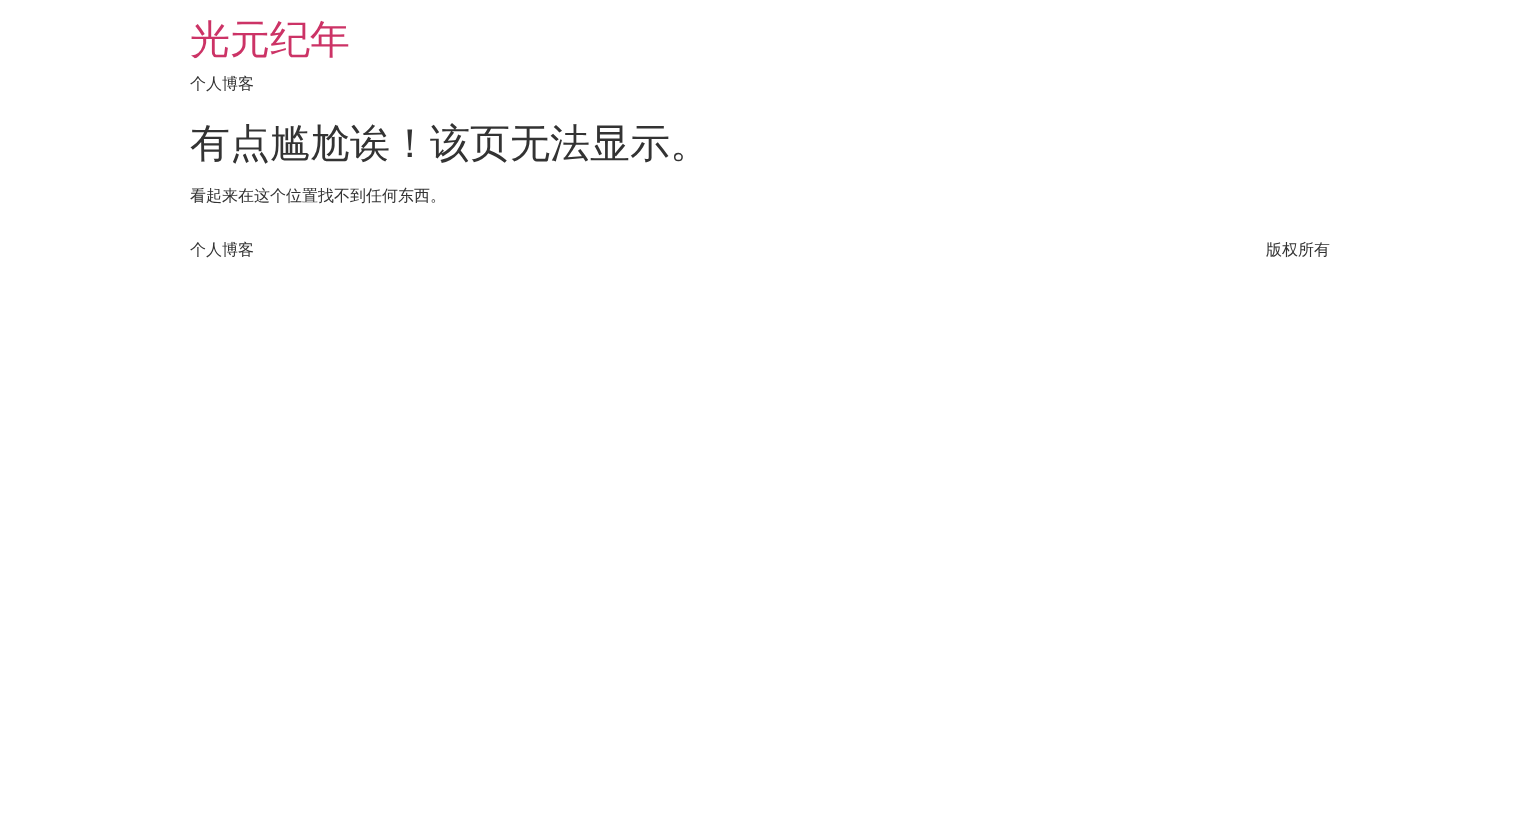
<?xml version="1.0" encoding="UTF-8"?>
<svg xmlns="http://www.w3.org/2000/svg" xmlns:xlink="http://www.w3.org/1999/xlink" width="1519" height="824">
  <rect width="100%" height="100%" fill="#ffffff" />
  <text x="190" y="53" style="font-family: WenQuanYi Zen Hei; font-size: 40px; font-weight: 500; fill: #cc3366">光元纪年</text>
  <text x="190" y="89" style="font-family: WenQuanYi Zen Hei; font-size: 16px; font-weight: 500; fill: #333333">个人博客</text>
  <text x="190" y="157" style="font-family: WenQuanYi Zen Hei; font-size: 40px; font-weight: 500; fill: #333333">有点尴尬诶！该页无法显示。</text>
  <text x="190" y="201" style="font-family: WenQuanYi Zen Hei; font-size: 16px; font-weight: 500; fill: #333333">看起来在这个位置找不到任何东西。</text>
  <text x="190" y="255" style="font-family: WenQuanYi Zen Hei; font-size: 16px; font-weight: 500; fill: #333333">个人博客</text>
  <text x="1266" y="255" style="font-family: WenQuanYi Zen Hei; font-size: 16px; font-weight: 500; fill: #333333">版权所有</text>
</svg>
